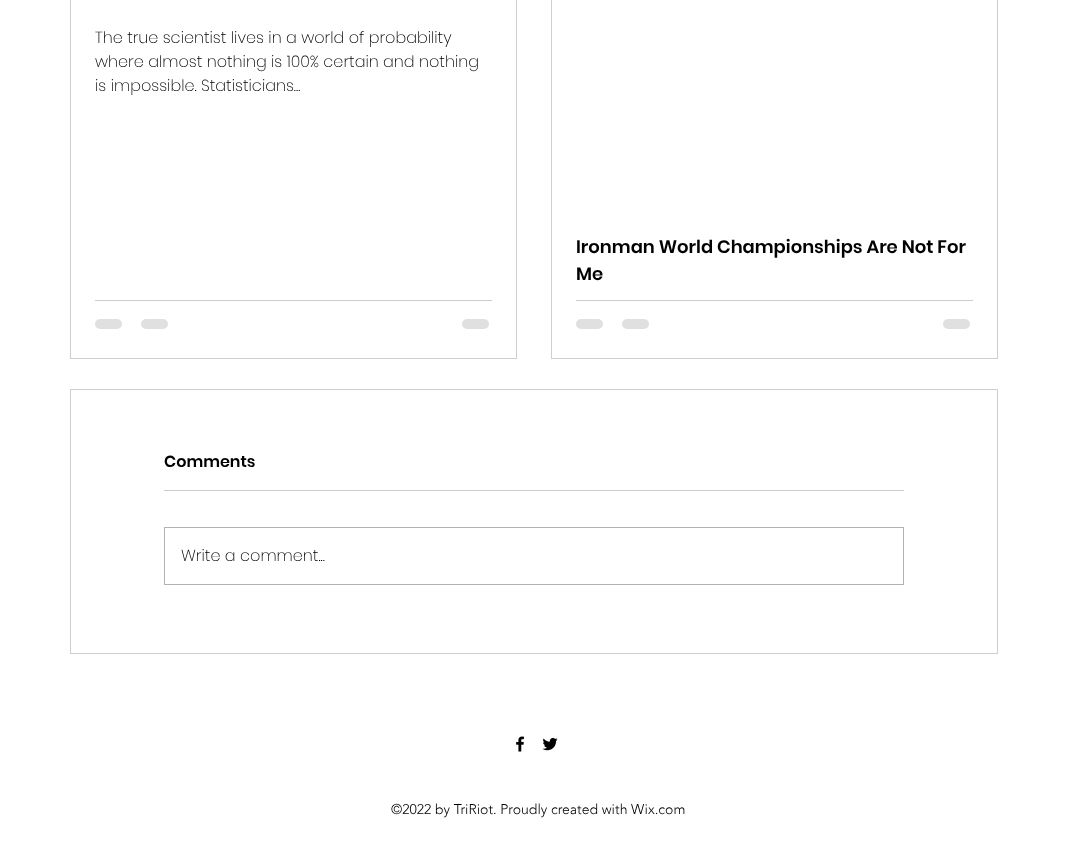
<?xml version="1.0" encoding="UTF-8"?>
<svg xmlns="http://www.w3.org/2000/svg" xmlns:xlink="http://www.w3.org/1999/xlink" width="1070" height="854">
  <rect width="100%" height="100%" fill="#ffffff" />
  <rect x="70.5" y="-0.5" width="446" height="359" fill="none" stroke="#cfcfcf" />
  <rect x="95" y="300" width="397" height="1" fill="#cccccc" />
  <rect x="95" y="319" width="27" height="10" rx="5" fill="#e0e0e0" />
  <rect x="141" y="319" width="27" height="10" rx="5" fill="#e0e0e0" />
  <rect x="462" y="319" width="27" height="10" rx="5" fill="#e0e0e0" />
  <rect x="551.5" y="-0.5" width="446" height="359" fill="none" stroke="#cfcfcf" />
  <rect x="576" y="300" width="397" height="1" fill="#cccccc" />
  <rect x="576" y="319" width="27" height="10" rx="5" fill="#e0e0e0" />
  <rect x="622" y="319" width="27" height="10" rx="5" fill="#e0e0e0" />
  <rect x="943" y="319" width="27" height="10" rx="5" fill="#e0e0e0" />
  <rect x="70.5" y="389.5" width="927" height="264" fill="none" stroke="#cfcfcf" />
  <rect x="164" y="490" width="740" height="1" fill="#cccccc" />
  <rect x="164.5" y="527.5" width="739" height="57" fill="none" stroke="#b3b3b3" />
  <image x="516" y="736" width="9" height="16" xlink:href="image1.png" />
  <image x="542" y="737" width="16" height="14" xlink:href="image2.png" />
  <text x="95" y="43" style="font-family: Poppins; font-size: 16px; font-weight: 200; fill: #000000">The true scientist lives in a world of probability</text>
  <text x="95" y="67" style="font-family: Poppins; font-size: 16px; font-weight: 200; fill: #000000">where almost nothing is 100% certain and nothing</text>
  <text x="95" y="91" style="font-family: Poppins; font-size: 16px; font-weight: 200; fill: #000000">is impossible. Statisticians...</text>
  <text x="576" y="253" style="font-family: Poppins; font-size: 18px; font-weight: 600; fill: #000000">Ironman World Championships Are Not For</text>
  <text x="576" y="280" style="font-family: Poppins; font-size: 18px; font-weight: 600; fill: #000000">Me</text>
  <text x="164" y="467" style="font-family: Poppins; font-size: 16px; font-weight: 600; fill: #000000">Comments</text>
  <text x="181" y="561" style="font-family: Poppins; font-size: 16px; font-weight: 200; fill: #000000">Write a comment...</text>
  <text x="391" y="814" style="font-family: 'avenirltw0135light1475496'; font-size: 14px; font-weight: 300; fill: #000000">©2022 by TriRiot. Proudly created with Wix.com</text>
</svg>
